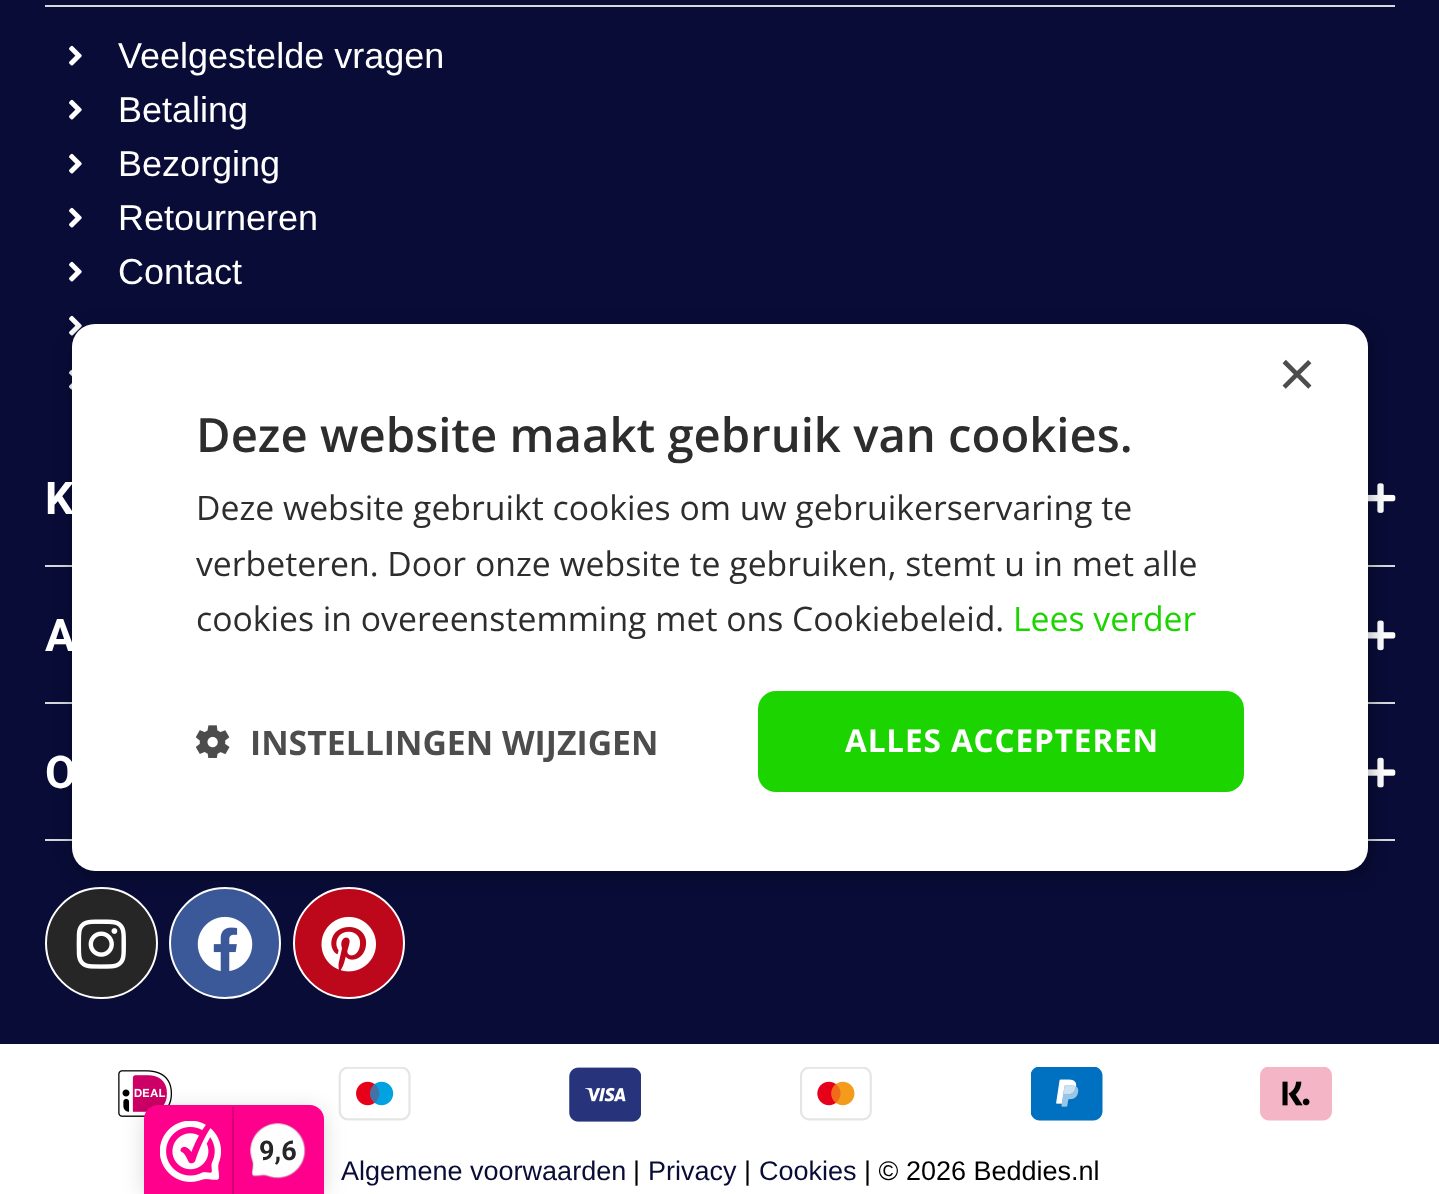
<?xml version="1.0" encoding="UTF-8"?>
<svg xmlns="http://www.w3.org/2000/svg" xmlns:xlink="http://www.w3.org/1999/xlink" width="1439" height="1194">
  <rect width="100%" height="100%" fill="#ffffff" />
  <rect width="1439" height="1044" fill="#090c37" />
  <rect x="45" y="5" width="1350" height="2" fill="#d5d8dc" />
  <image x="69" y="45" width="13" height="21" xlink:href="image1.png" />
  <image x="69" y="99" width="13" height="21" xlink:href="image1.png" />
  <image x="69" y="153" width="13" height="21" xlink:href="image1.png" />
  <image x="69" y="207" width="13" height="21" xlink:href="image1.png" />
  <image x="69" y="261" width="13" height="21" xlink:href="image1.png" />
  <image x="69" y="315" width="13" height="21" xlink:href="image1.png" />
  <image x="69" y="369" width="3" height="21" xlink:href="image2.png" />
  <rect x="45" y="565" width="1350" height="2" fill="#d5d8dc" />
  <image x="1368" y="483" width="28" height="30" xlink:href="image3.png" />
  <rect x="45" y="702" width="1350" height="2" fill="#d5d8dc" />
  <image x="1368" y="620" width="28" height="31" xlink:href="image4.png" />
  <rect x="45" y="839" width="1350" height="2" fill="#d5d8dc" />
  <image x="1368" y="757" width="28" height="31" xlink:href="image5.png" />
  <rect x="46" y="888" width="111" height="110" rx="55" fill="#262626" stroke="#ffffff" stroke-width="2" />
  <image x="76" y="919" width="50" height="50" xlink:href="image6.png" />
  <circle cx="225" cy="943" r="55" fill="#3b5998" stroke="#ffffff" stroke-width="2" />
  <image x="197" y="916" width="56" height="55" xlink:href="image7.png" />
  <circle cx="349" cy="943" r="55" fill="#bd081c" stroke="#ffffff" stroke-width="2" />
  <image x="321" y="916" width="55" height="56" xlink:href="image8.png" />
  <image x="118" y="1070" width="55" height="47" xlink:href="image9.png" />
  <image x="338" y="1067" width="73" height="54" xlink:href="image10.png" />
  <image x="569" y="1067" width="72" height="55" xlink:href="image11.png" />
  <image x="800" y="1067" width="72" height="54" xlink:href="image12.png" />
  <image x="1031" y="1067" width="72" height="54" xlink:href="image13.png" />
  <image x="1260" y="1067" width="72" height="54" xlink:href="image14.png" />
  <rect x="74" y="329" width="1296" height="546" rx="23" fill="#000000" fill-opacity="0.35" filter="blur(9px)" />
  <rect x="72" y="324" width="1296" height="547" rx="23" fill="#ffffff" />
  <image x="196" y="725" width="34" height="33" xlink:href="image15.png" />
  <rect x="758" y="691" width="486" height="101" rx="18" fill="#1cd400" />
  <rect x="144" y="1109" width="180" height="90" rx="14" fill="#000000" fill-opacity="0.15" filter="blur(11px)" />
  <path d="M 158 1105 h 152 c 7.5 0 14 6.5 14 14 v 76 h -180 v -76 c 0 -7.5 6.5 -14 14 -14 z" fill="#fe008c" />
  <image x="160" y="1121" width="61" height="61" xlink:href="image16.png" />
  <rect x="232" y="1107" width="2" height="87" fill="#d80077" />
  <image x="250" y="1123" width="56" height="56" xlink:href="image17.png" />
  <text x="118" y="68" style="font-family: Liberation Sans; font-size: 36px; fill: #ffffff">Veelgestelde vragen</text>
  <text x="118" y="122" style="font-family: Liberation Sans; font-size: 36px; fill: #ffffff">Betaling</text>
  <text x="118" y="176" style="font-family: Liberation Sans; font-size: 36px; fill: #ffffff">Bezorging</text>
  <text x="118" y="230" style="font-family: Liberation Sans; font-size: 36px; fill: #ffffff">Retourneren</text>
  <text x="118" y="284" style="font-family: Liberation Sans; font-size: 36px; fill: #ffffff">Contact</text>
  <text x="45" y="514" style="font-family: Roboto; font-size: 45px; font-weight: bold; fill: #ffffff">K</text>
  <text x="45" y="651" style="font-family: Roboto; font-size: 45px; font-weight: bold; fill: #ffffff">A</text>
  <text x="45" y="788" style="font-family: Roboto; font-size: 45px; font-weight: bold; fill: #ffffff">O</text>
  <text x="341" y="1180" style="font-family: Liberation Sans; font-size: 27px; fill: #090c37">Algemene voorwaarden</text>
  <text x="633" y="1180" style="font-family: Liberation Sans; font-size: 27px; fill: #000000">|</text>
  <text x="648" y="1180" style="font-family: Liberation Sans; font-size: 27px; fill: #090c37">Privacy</text>
  <text x="744" y="1180" style="font-family: Liberation Sans; font-size: 27px; fill: #000000">|</text>
  <text x="759" y="1180" style="font-family: Liberation Sans; font-size: 27px; fill: #090c37">Cookies</text>
  <text x="864" y="1180" style="font-family: Liberation Sans; font-size: 27px; fill: #000000">| © 2026 Beddies.nl</text>
  <text x="1278" y="396" style="font-family: Liberation Sans; font-size: 65px; fill: #4d4d4d">×</text>
  <text x="196" y="452" style="font-family: Open Sans; font-size: 47.25px; font-weight: 600; fill: #2d2d2d">Deze website maakt gebruik van cookies.</text>
  <text x="196" y="520" style="font-family: Open Sans; font-size: 33.75px; fill: #2d2d2d">Deze website gebruikt cookies om uw gebruikerservaring te</text>
  <text x="196" y="576" style="font-family: Open Sans; font-size: 33.75px; fill: #2d2d2d">verbeteren. Door onze website te gebruiken, stemt u in met alle</text>
  <text x="196" y="631" style="font-family: Open Sans; font-size: 33.75px; fill: #2d2d2d">cookies in overeenstemming met ons Cookiebeleid.</text>
  <text x="1013" y="631" style="font-family: Open Sans; font-size: 33.75px; fill: #1cd400">Lees verder</text>
  <text x="250" y="755" style="font-family: Open Sans; font-size: 33.75px; font-weight: bold; fill: #4d4d4d">INSTELLINGEN WIJZIGEN</text>
  <text x="845" y="752" style="font-family: Open Sans; font-size: 31.5px; font-weight: bold; letter-spacing: 0.9px; fill: #ffffff">ALLES ACCEPTEREN</text>
  <text x="259" y="1160" style="font-family: Roboto; font-size: 27px; font-weight: bold; fill: #272626">9,6</text>
</svg>
